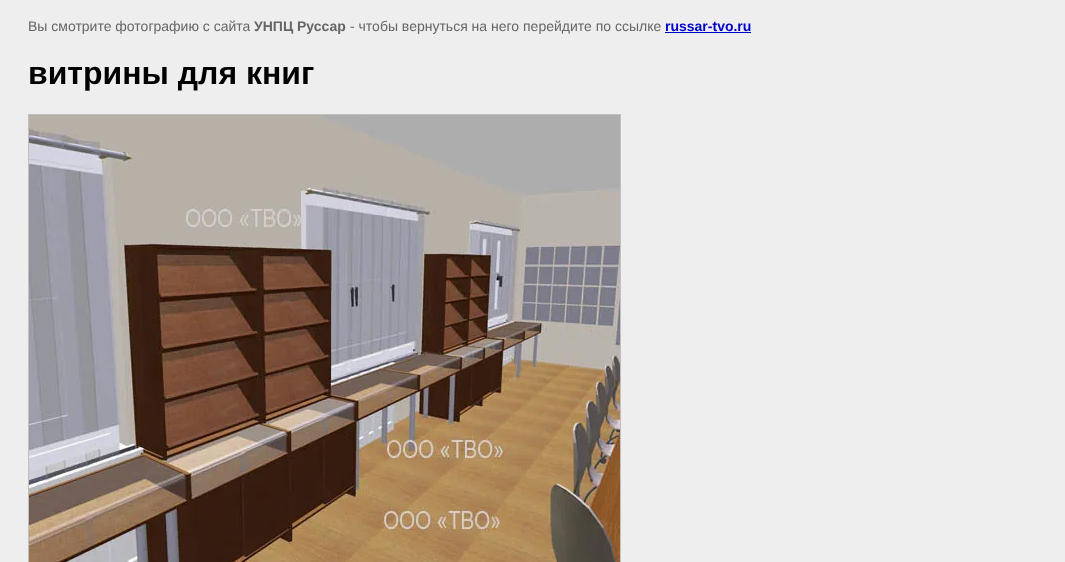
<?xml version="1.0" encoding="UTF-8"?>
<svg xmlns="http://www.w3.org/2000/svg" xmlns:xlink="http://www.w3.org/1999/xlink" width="1065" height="562">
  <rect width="100%" height="100%" fill="#eeeeee" />
  <rect x="665" y="32" width="86" height="1" fill="#0000cc" />
  <rect x="28.5" y="114.5" width="592" height="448" fill="none" stroke="#c0c0c0" />
  <image x="29" y="115" width="591" height="447" xlink:href="image1.png" />
  <text x="28" y="31" style="font-family: Liberation Sans; font-size: 14px; fill: #666666">Вы смотрите фотографию с сайта</text>
  <text x="254" y="31" style="font-family: Liberation Sans; font-size: 14px; font-weight: bold; fill: #666666">УНПЦ Руссар</text>
  <text x="350" y="31" style="font-family: Liberation Sans; font-size: 14px; fill: #666666">- чтобы вернуться на него перейдите по ссылке</text>
  <text x="665" y="31" style="font-family: Liberation Sans; font-size: 14px; font-weight: bold; fill: #0000cc">russar-tvo.ru</text>
  <text x="28" y="84" style="font-family: Liberation Sans; font-size: 32px; font-weight: bold; fill: #000000">витрины для книг</text>
</svg>
